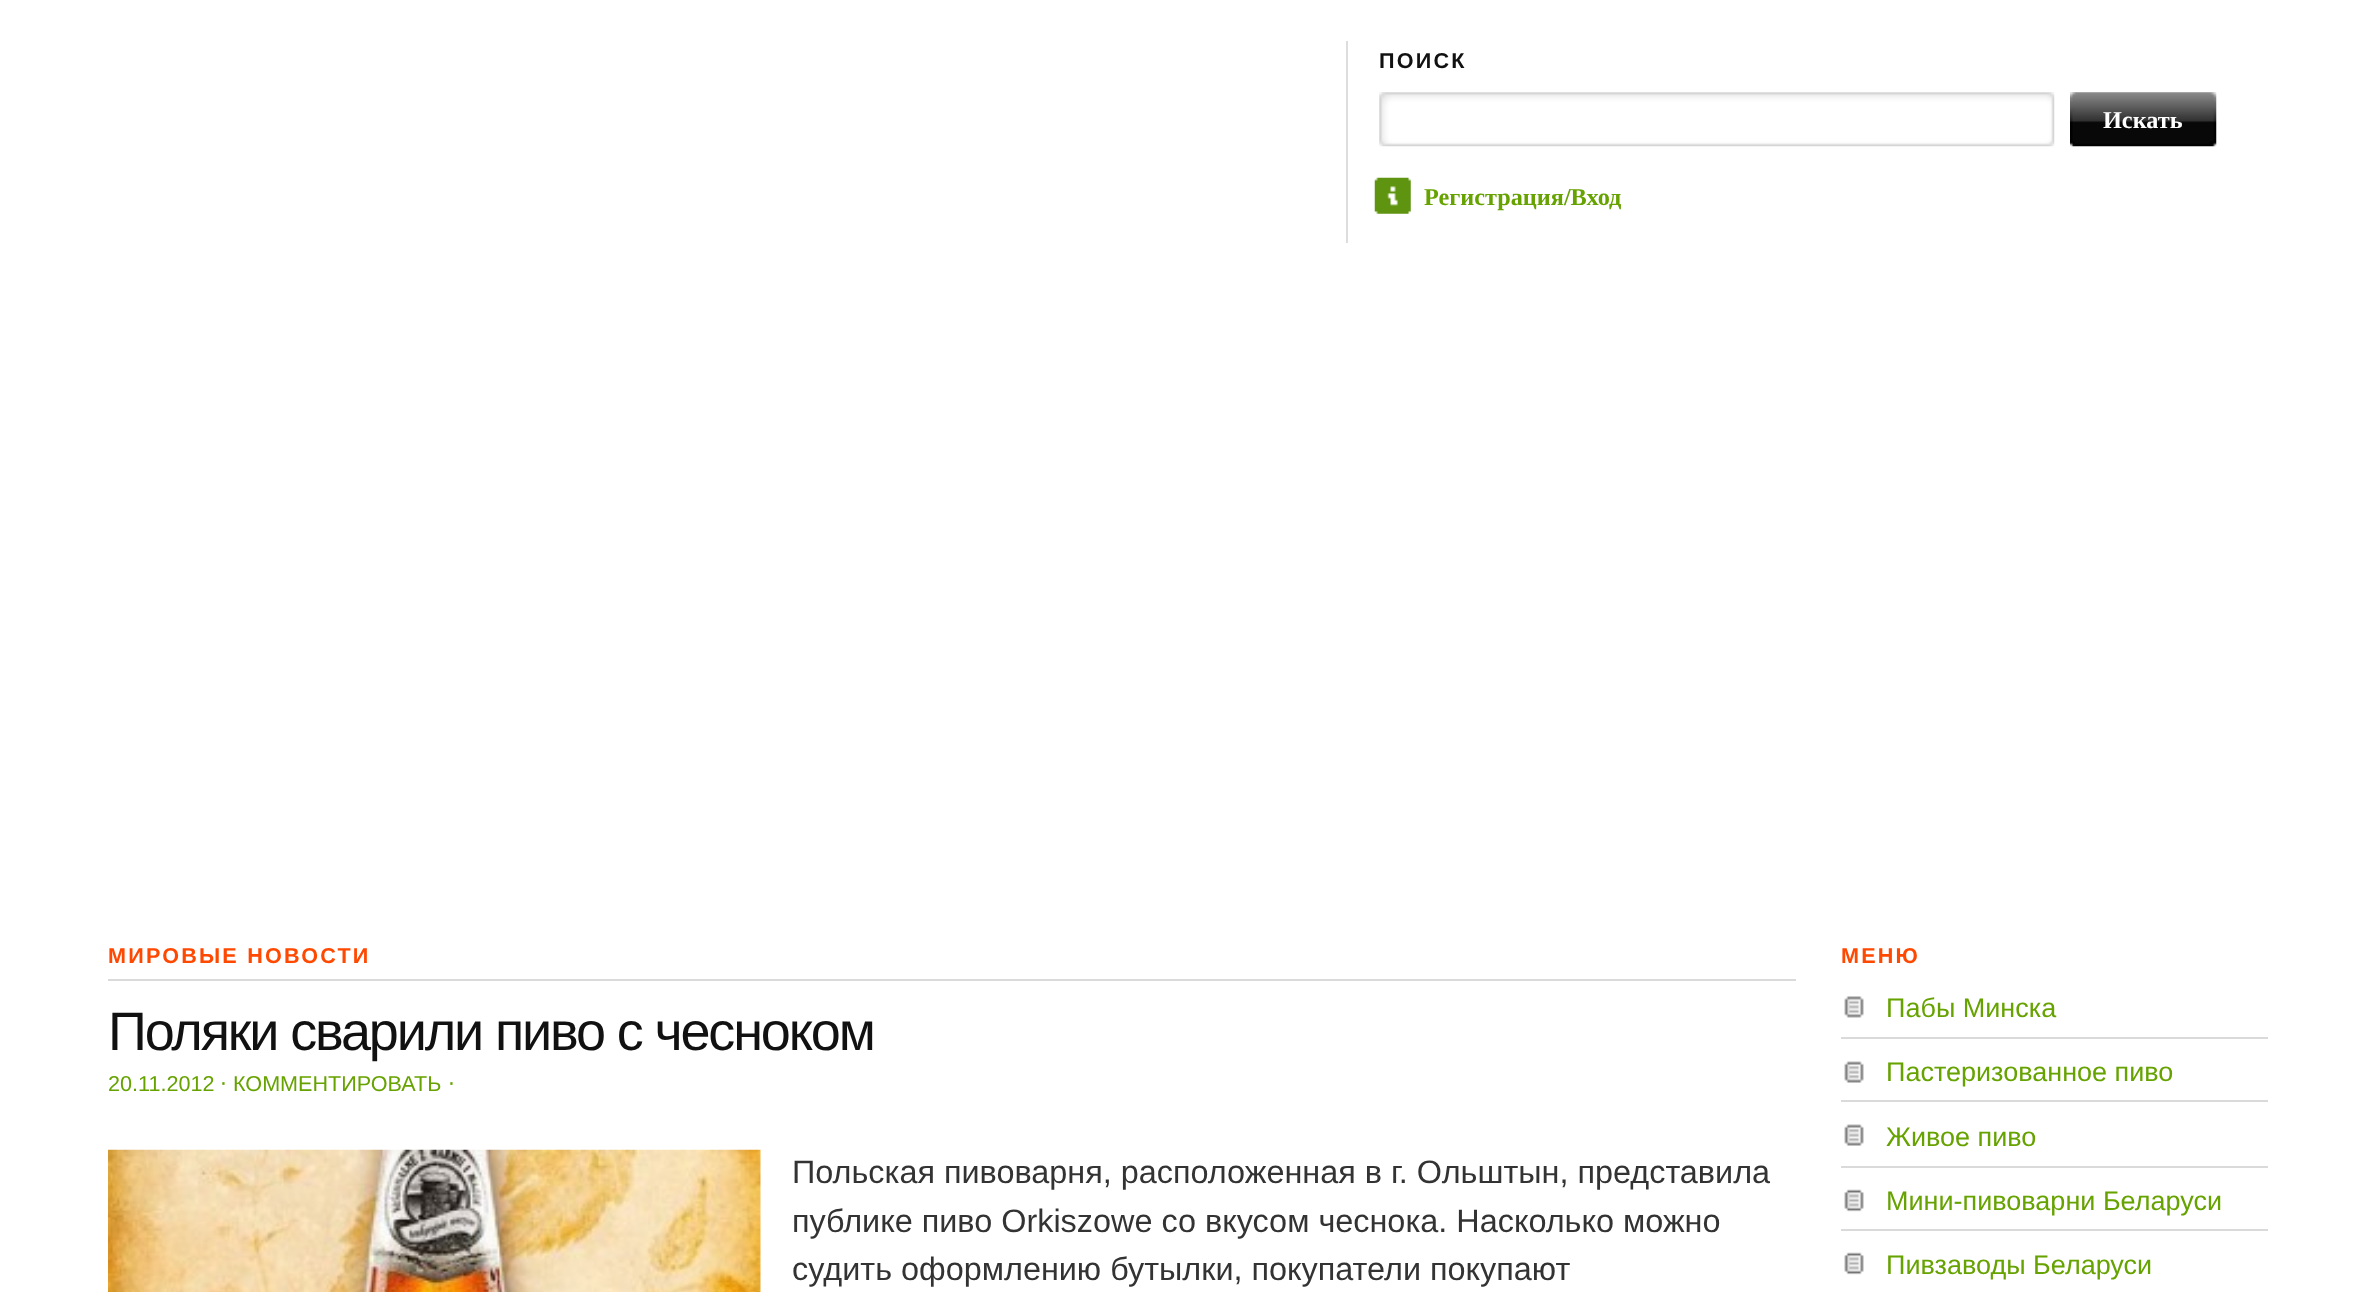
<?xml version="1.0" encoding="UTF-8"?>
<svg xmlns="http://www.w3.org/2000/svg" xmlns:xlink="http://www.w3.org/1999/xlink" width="2376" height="1292">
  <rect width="100%" height="100%" fill="#ffffff" />
  <rect x="1346" y="41" width="2" height="202" fill="#dddddd" />
  <image x="1379" y="92" width="676" height="55" xlink:href="image1.png" />
  <image x="2070" y="92" width="147" height="55" xlink:href="image2.png" />
  <image x="1374" y="177" width="37" height="37" xlink:href="image3.png" />
  <rect x="108" y="979" width="1688" height="2" fill="#dadada" />
  <image x="108" y="1149" width="653" height="143" xlink:href="image4.png" />
  <image x="1844" y="996" width="20" height="22" xlink:href="image5.png" />
  <rect x="1841" y="1037" width="427" height="2" fill="#dadada" />
  <image x="1844" y="1061" width="20" height="22" xlink:href="image6.png" />
  <rect x="1841" y="1100" width="427" height="2" fill="#dadada" />
  <image x="1844" y="1124" width="20" height="22" xlink:href="image6.png" />
  <rect x="1841" y="1166" width="427" height="2" fill="#dadada" />
  <image x="1844" y="1189" width="20" height="23" xlink:href="image7.png" />
  <rect x="1841" y="1229" width="427" height="2" fill="#dadada" />
  <image x="1844" y="1252" width="20" height="23" xlink:href="image7.png" />
  <text x="1379" y="68" style="font-family: Liberation Sans; font-size: 21.6px; font-weight: bold; letter-spacing: 2.2px; fill: #111111">ПОИСК</text>
  <text x="2103" y="128" style="font-family: Liberation Serif; font-size: 24.25px; font-weight: bold; fill: #ffffff">Искать</text>
  <text x="1424" y="205" style="font-family: Liberation Serif; font-size: 24.25px; font-weight: bold; fill: #66a200">Регистрация/Вход</text>
  <text x="108" y="963" style="font-family: Liberation Sans; font-size: 21.6px; font-weight: bold; letter-spacing: 2.2px; fill: #ff4800">МИРОВЫЕ НОВОСТИ</text>
  <text x="108" y="1050" style="font-family: Liberation Sans; font-size: 54px; letter-spacing: -2.15px; fill: #111111">Поляки сварили пиво с чесноком</text>
  <text x="108" y="1091" style="font-family: Liberation Sans; font-size: 21.6px; fill: #66a200">20.11.2012</text>
  <text x="220" y="1091" style="font-family: DejaVu Sans; font-size: 21.6px; fill: #66a200">⋅</text>
  <text x="233" y="1091" style="font-family: Liberation Sans; font-size: 21.6px; fill: #66a200">КОММЕНТИРОВАТЬ</text>
  <text x="448" y="1091" style="font-family: DejaVu Sans; font-size: 21.6px; fill: #66a200">⋅</text>
  <text x="792" y="1183" style="font-family: Liberation Sans; font-size: 32.4px; fill: #333333">Польская пивоварня, расположенная в г. Ольштын, представила</text>
  <text x="792" y="1232" style="font-family: Liberation Sans; font-size: 32.4px; fill: #333333">публике пиво Orkiszowe со вкусом чеснока. Насколько можно</text>
  <text x="792" y="1280" style="font-family: Liberation Sans; font-size: 32.4px; fill: #333333">судить оформлению бутылки, покупатели покупают</text>
  <text x="1841" y="963" style="font-family: Liberation Sans; font-size: 21.6px; font-weight: bold; letter-spacing: 2.2px; fill: #ff4800">МЕНЮ</text>
  <text x="1886" y="1017" style="font-family: Liberation Sans; font-size: 27px; fill: #66a200">Пабы Минска</text>
  <text x="1886" y="1081" style="font-family: Liberation Sans; font-size: 27px; fill: #66a200">Пастеризованное пиво</text>
  <text x="1886" y="1146" style="font-family: Liberation Sans; font-size: 27px; fill: #66a200">Живое пиво</text>
  <text x="1886" y="1210" style="font-family: Liberation Sans; font-size: 27px; fill: #66a200">Мини-пивоварни Беларуси</text>
  <text x="1886" y="1274" style="font-family: Liberation Sans; font-size: 27px; fill: #66a200">Пивзаводы Беларуси</text>
</svg>
